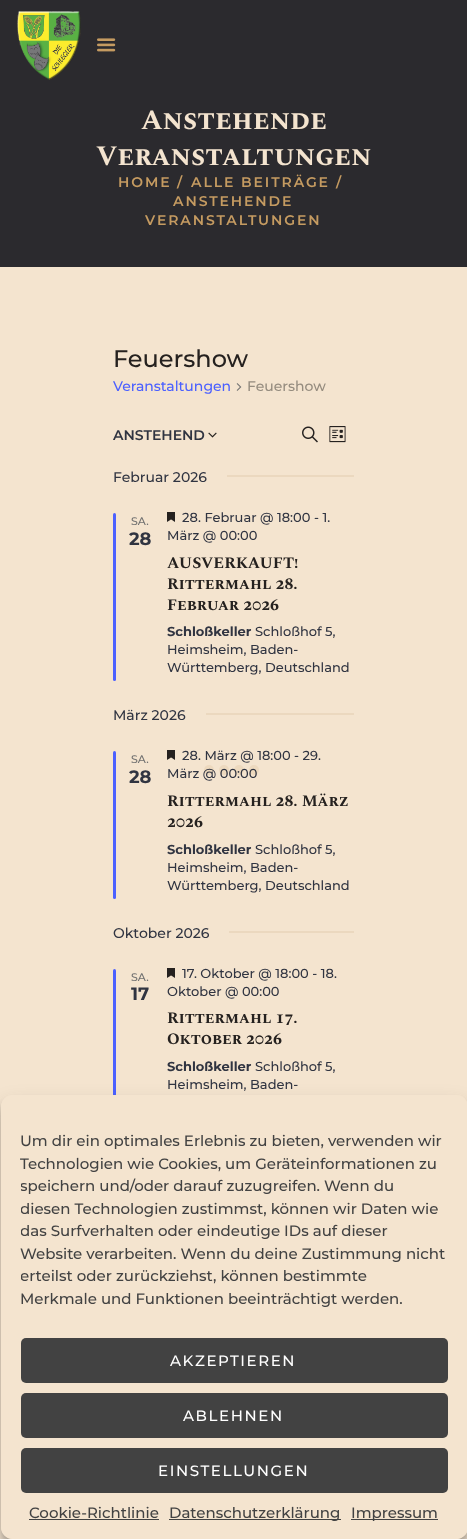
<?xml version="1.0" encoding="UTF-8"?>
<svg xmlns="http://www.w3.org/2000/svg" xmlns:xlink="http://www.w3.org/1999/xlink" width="467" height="1539">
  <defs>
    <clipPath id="clip1"><path d="M 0 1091 h 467 v 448 h -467 z m 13 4 h 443 c 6.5 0 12 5.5 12 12 v 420 c 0 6.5 -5.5 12 -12 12 h -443 c -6.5 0 -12 -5.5 -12 -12 v -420 c 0 -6.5 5.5 -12 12 -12 z" clip-rule="evenodd" /></clipPath>
    <clipPath id="clip2"><path d="M 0 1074 h 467 v 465 h -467 z m 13 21 h 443 c 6.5 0 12 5.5 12 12 v 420 c 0 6.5 -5.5 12 -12 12 h -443 c -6.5 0 -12 -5.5 -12 -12 v -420 c 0 -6.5 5.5 -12 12 -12 z" clip-rule="evenodd" /></clipPath>
    <clipPath id="clip3"><rect x="21" y="1130" width="427" height="185" /></clipPath>
  </defs>
  <rect width="100%" height="100%" fill="#f4e4cf" />
  <rect width="467" height="267" fill="#2b2a2e" />
  <image x="17" y="11" width="64" height="69" xlink:href="image1.png" />
  <image x="97" y="38" width="19" height="14" xlink:href="image2.png" />
  <image x="236" y="383" width="6" height="8" xlink:href="image3.png" />
  <image x="208" y="432" width="9" height="6" xlink:href="image4.png" />
  <image x="302" y="426" width="16" height="17" xlink:href="image5.png" />
  <image x="329" y="426" width="17" height="17" xlink:href="image6.png" />
  <rect x="227" y="475" width="127" height="2" fill="#ebd8bf" />
  <rect x="113" y="513" width="3" height="168" rx="1.5" fill="#4b60ff" />
  <image x="167" y="512" width="8" height="10" xlink:href="image7.png" />
  <rect x="206" y="713" width="148" height="2" fill="#ebd8bf" />
  <rect x="113" y="751" width="3" height="148" rx="1.5" fill="#4b60ff" />
  <image x="167" y="750" width="8" height="10" xlink:href="image7.png" />
  <rect x="229" y="931" width="125" height="2" fill="#ebd8bf" />
  <rect x="113" y="969" width="3" height="147" rx="1.5" fill="#4b60ff" />
  <image x="167" y="968" width="8" height="10" xlink:href="image7.png" />
  <circle cx="209" cy="770" r="5" fill="#bd8d4c" fill-opacity="0.12" />
  <circle cx="224" cy="770" r="5" fill="#bd8d4c" fill-opacity="0.12" />
  <circle cx="239" cy="770" r="5" fill="#bd8d4c" fill-opacity="0.12" />
  <circle cx="254" cy="770" r="5" fill="#bd8d4c" fill-opacity="0.12" />
  <g clip-path="url(#clip1)">
    <rect x="1" y="1101" width="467" height="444" rx="12" fill="#1f1f1f" fill-opacity="0.23" filter="blur(3px)" />
  </g>
  <g clip-path="url(#clip2)">
    <rect x="1" y="1105" width="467" height="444" rx="12" fill="#1f1f1f" fill-opacity="0.19" filter="blur(10px)" />
  </g>
  <rect x="1" y="1095" width="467" height="444" rx="12" fill="#f4e4cf" />
  <rect x="21" y="1338" width="427" height="45" rx="5" fill="#424242" />
  <rect x="21" y="1393" width="427" height="45" rx="5" fill="#424242" />
  <rect x="21" y="1448" width="427" height="45" rx="5" fill="#424242" />
  <rect x="29" y="1519" width="130" height="1" fill="#424242" />
  <rect x="169" y="1519" width="172" height="1" fill="#424242" />
  <rect x="351" y="1519" width="87" height="1" fill="#424242" />
  <text x="141" y="129" style="font-family: Spectral SC; font-size: 28px; font-weight: bold; fill: #f4e4cf">Anstehende</text>
  <text x="96" y="165" style="font-family: Spectral SC; font-size: 28px; font-weight: bold; fill: #f4e4cf">Veranstaltungen</text>
  <text x="118" y="187" style="font-family: Montserrat; font-size: 14px; font-weight: 600; letter-spacing: 1.9px; fill: #c59b61">HOME</text>
  <text x="177" y="187" style="font-family: Montserrat; font-size: 14px; font-weight: 600; letter-spacing: 1.9px; fill: #c59b61">/</text>
  <text x="191" y="187" style="font-family: Montserrat; font-size: 14px; font-weight: 600; letter-spacing: 1.9px; fill: #c59b61">ALLE BEITRÄGE</text>
  <text x="336" y="187" style="font-family: Montserrat; font-size: 14px; font-weight: 600; letter-spacing: 1.9px; fill: #c59b61">/</text>
  <text x="173" y="206" style="font-family: Montserrat; font-size: 14px; font-weight: 600; letter-spacing: 1.9px; fill: #c59b61">ANSTEHENDE</text>
  <text x="145" y="225" style="font-family: Montserrat; font-size: 14px; font-weight: 600; letter-spacing: 1.9px; fill: #c59b61">VERANSTALTUNGEN</text>
  <text x="113" y="367" style="font-family: Montserrat; font-size: 24px; font-weight: 500; fill: #25211f">Feuershow</text>
  <text x="113" y="391" style="font-family: Montserrat; font-size: 14px; font-weight: 500; fill: #4b60ff">Veranstaltungen</text>
  <text x="247" y="391" style="font-family: Montserrat; font-size: 14px; font-weight: 500; fill: #958c7f">Feuershow</text>
  <text x="113" y="440" style="font-family: Montserrat; font-size: 14px; font-weight: 600; fill: #303441">ANSTEHEND</text>
  <text x="113" y="482" style="font-family: Montserrat; font-size: 14px; font-weight: 500; fill: #303441">Februar 2026</text>
  <text x="131" y="525" style="font-family: Montserrat; font-size: 11px; font-weight: 500; fill: #707070">SA.</text>
  <text x="129" y="545" style="font-family: Montserrat; font-size: 18px; font-weight: bold; fill: #303441">28</text>
  <text x="182" y="522" style="font-family: Montserrat; font-size: 13px; font-weight: 500; fill: #303441">28. Februar @ 18:00 - 1.</text>
  <text x="167" y="540" style="font-family: Montserrat; font-size: 13px; font-weight: 500; fill: #303441">März @ 00:00</text>
  <text x="167" y="568" style="font-family: Spectral SC; font-size: 16px; font-weight: bold; fill: #25211f">AUSVERKAUFT!</text>
  <text x="167" y="589" style="font-family: Spectral SC; font-size: 16px; font-weight: bold; fill: #25211f">Rittermahl 28.</text>
  <text x="167" y="610" style="font-family: Spectral SC; font-size: 16px; font-weight: bold; fill: #25211f">Februar 2026</text>
  <text x="167" y="636" style="font-family: Montserrat; font-size: 13px; font-weight: bold; fill: #303441">Schloßkeller</text>
  <text x="255" y="636" style="font-family: Montserrat; font-size: 13px; font-weight: 500; fill: #303441">Schloßhof 5,</text>
  <text x="167" y="654" style="font-family: Montserrat; font-size: 13px; font-weight: 500; fill: #303441">Heimsheim, Baden-</text>
  <text x="167" y="672" style="font-family: Montserrat; font-size: 13px; font-weight: 500; fill: #303441">Württemberg, Deutschland</text>
  <text x="113" y="720" style="font-family: Montserrat; font-size: 14px; font-weight: 500; fill: #303441">März 2026</text>
  <text x="131" y="763" style="font-family: Montserrat; font-size: 11px; font-weight: 500; fill: #707070">SA.</text>
  <text x="129" y="783" style="font-family: Montserrat; font-size: 18px; font-weight: bold; fill: #303441">28</text>
  <text x="182" y="760" style="font-family: Montserrat; font-size: 13px; font-weight: 500; fill: #303441">28. März @ 18:00 - 29.</text>
  <text x="167" y="778" style="font-family: Montserrat; font-size: 13px; font-weight: 500; fill: #303441">März @ 00:00</text>
  <text x="167" y="806" style="font-family: Spectral SC; font-size: 16px; font-weight: bold; fill: #25211f">Rittermahl 28. März</text>
  <text x="167" y="827" style="font-family: Spectral SC; font-size: 16px; font-weight: bold; fill: #25211f">2026</text>
  <text x="167" y="854" style="font-family: Montserrat; font-size: 13px; font-weight: bold; fill: #303441">Schloßkeller</text>
  <text x="255" y="854" style="font-family: Montserrat; font-size: 13px; font-weight: 500; fill: #303441">Schloßhof 5,</text>
  <text x="167" y="872" style="font-family: Montserrat; font-size: 13px; font-weight: 500; fill: #303441">Heimsheim, Baden-</text>
  <text x="167" y="890" style="font-family: Montserrat; font-size: 13px; font-weight: 500; fill: #303441">Württemberg, Deutschland</text>
  <text x="113" y="938" style="font-family: Montserrat; font-size: 14px; font-weight: 500; fill: #303441">Oktober 2026</text>
  <text x="131" y="981" style="font-family: Montserrat; font-size: 11px; font-weight: 500; fill: #707070">SA.</text>
  <text x="131" y="1000" style="font-family: Montserrat; font-size: 18px; font-weight: bold; fill: #303441">17</text>
  <text x="182" y="978" style="font-family: Montserrat; font-size: 13px; font-weight: 500; fill: #303441">17. Oktober @ 18:00 - 18.</text>
  <text x="167" y="996" style="font-family: Montserrat; font-size: 13px; font-weight: 500; fill: #303441">Oktober @ 00:00</text>
  <text x="167" y="1023" style="font-family: Spectral SC; font-size: 16px; font-weight: bold; fill: #25211f">Rittermahl 17.</text>
  <text x="167" y="1044" style="font-family: Spectral SC; font-size: 16px; font-weight: bold; fill: #25211f">Oktober 2026</text>
  <text x="167" y="1071" style="font-family: Montserrat; font-size: 13px; font-weight: bold; fill: #303441">Schloßkeller</text>
  <text x="255" y="1071" style="font-family: Montserrat; font-size: 13px; font-weight: 500; fill: #303441">Schloßhof 5,</text>
  <text x="167" y="1089" style="font-family: Montserrat; font-size: 13px; font-weight: 500; fill: #303441">Heimsheim, Baden-</text>
  <text x="20" y="1146" style="font-family: Montserrat; font-size: 15px; font-weight: 500; fill: #424242">Um dir ein optimales Erlebnis zu bieten, verwenden wir</text>
  <text x="20" y="1169" style="font-family: Montserrat; font-size: 15px; font-weight: 500; fill: #424242">Technologien wie Cookies, um Geräteinformationen zu</text>
  <g clip-path="url(#clip3)">
    <text x="20" y="1191" style="font-family: Montserrat; font-size: 15px; font-weight: 500; fill: #424242">speichern und/oder darauf zuzugreifen. Wenn du</text>
    <text x="20" y="1214" style="font-family: Montserrat; font-size: 15px; font-weight: 500; fill: #424242">diesen Technologien zustimmst, können wir Daten wie</text>
    <text x="20" y="1236" style="font-family: Montserrat; font-size: 15px; font-weight: 500; fill: #424242">das Surfverhalten oder eindeutige IDs auf dieser</text>
  </g>
  <text x="20" y="1259" style="font-family: Montserrat; font-size: 15px; font-weight: 500; fill: #424242">Website verarbeiten. Wenn du deine Zustimmung nicht</text>
  <g clip-path="url(#clip3)">
    <text x="20" y="1281" style="font-family: Montserrat; font-size: 15px; font-weight: 500; fill: #424242">erteilst oder zurückziehst, können bestimmte</text>
  </g>
  <text x="20" y="1304" style="font-family: Montserrat; font-size: 15px; font-weight: 500; fill: #424242">Merkmale und Funktionen beeinträchtigt werden.</text>
  <text x="170" y="1366" style="font-family: Montserrat; font-size: 15px; font-weight: 500; letter-spacing: 1.6px; fill: #ffffff">AKZEPTIEREN</text>
  <text x="183" y="1421" style="font-family: Montserrat; font-size: 15px; font-weight: 500; letter-spacing: 1.6px; fill: #ffffff">ABLEHNEN</text>
  <text x="158" y="1476" style="font-family: Montserrat; font-size: 15px; font-weight: 500; letter-spacing: 1.6px; fill: #ffffff">EINSTELLUNGEN</text>
  <text x="29" y="1518" style="font-family: Montserrat; font-size: 15px; font-weight: 500; fill: #424242">Cookie-Richtlinie</text>
  <text x="169" y="1518" style="font-family: Montserrat; font-size: 15px; font-weight: 500; fill: #424242">Datenschutzerklärung</text>
  <text x="351" y="1518" style="font-family: Montserrat; font-size: 15px; font-weight: 500; fill: #424242">Impressum</text>
</svg>
